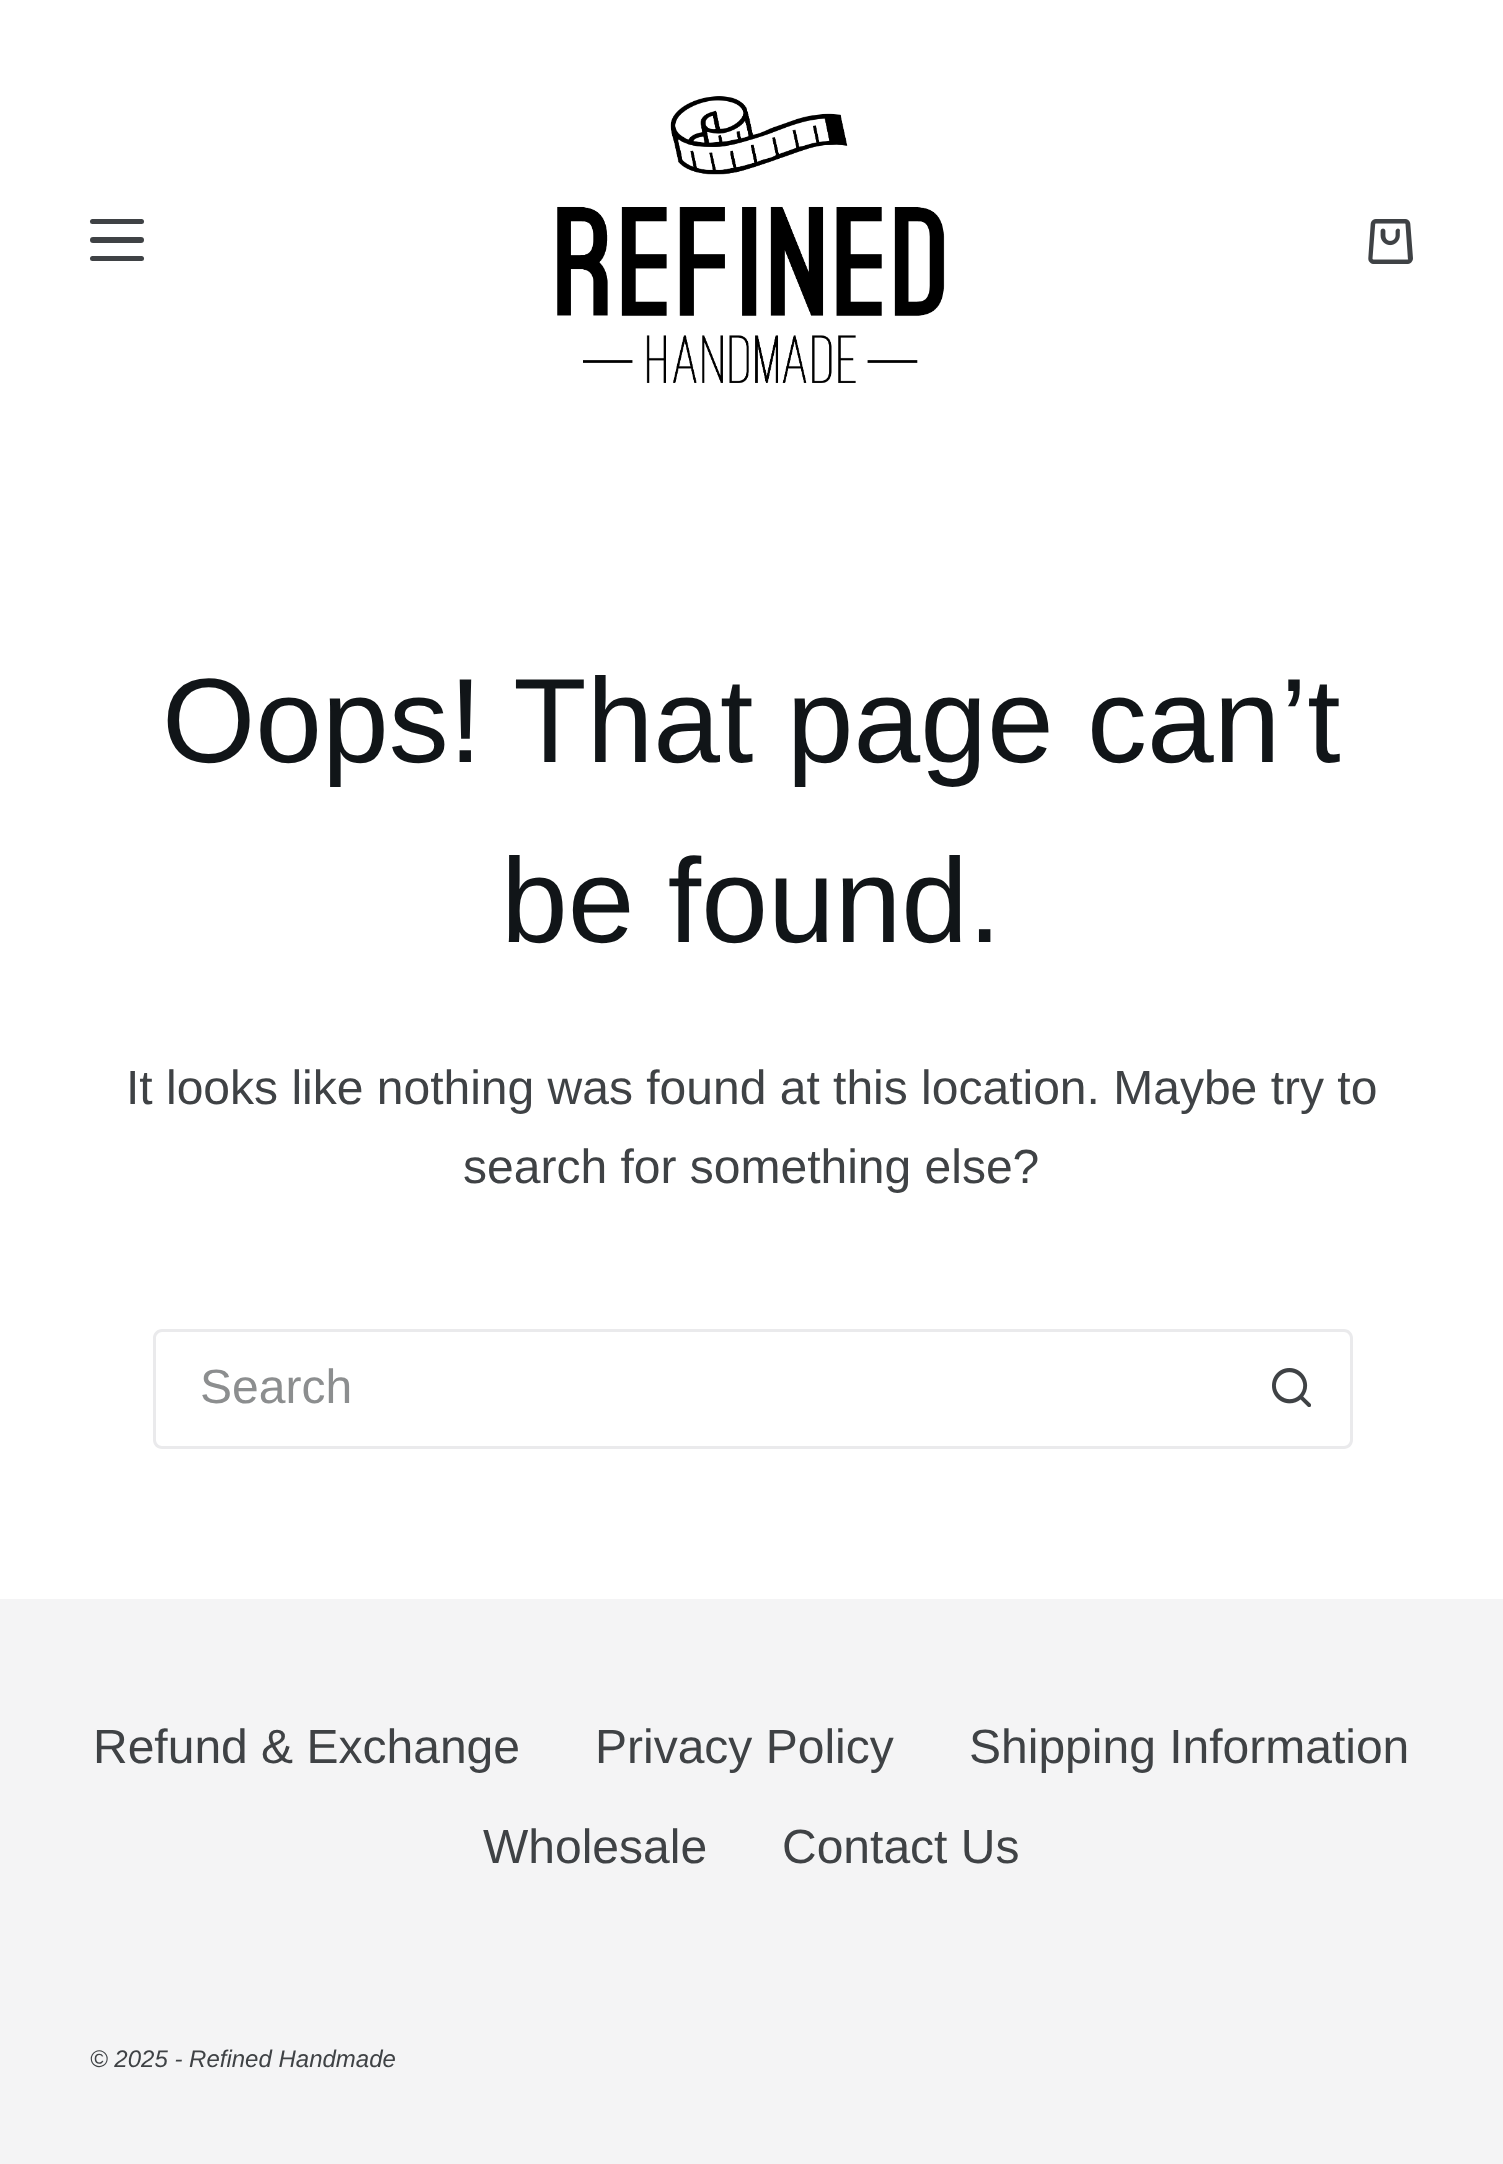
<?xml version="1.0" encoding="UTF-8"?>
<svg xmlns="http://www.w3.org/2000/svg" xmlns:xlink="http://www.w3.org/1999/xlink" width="1503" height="2164">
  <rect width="100%" height="100%" fill="#ffffff" />
  <rect x="90" y="219" width="54" height="5" rx="2.5" fill="#3f4245" />
  <rect x="90" y="237" width="54" height="6" rx="3" fill="#3f4245" />
  <rect x="90" y="256" width="54" height="5" rx="2.5" fill="#3f4245" />
  <image x="557" y="96" width="388" height="287" xlink:href="image1.png" />
  <image x="1368" y="219" width="45" height="45" xlink:href="image2.png" />
  <path d="M 162 1329 h 1071 v 120 h -1071 c -5 0 -9 -4 -9 -9 v -102 c 0 -5 4 -9 9 -9 z m 0 3 h 1071 v 114 h -1071 c -3 0 -6 -3 -6 -6 v -102 c 0 -3 3 -6 6 -6 z" fill="#eaeaec" fill-rule="evenodd" />
  <path d="M 1233 1329 h 111 c 5 0 9 4 9 9 v 102 c 0 5 -4 9 -9 9 h -111 z m 0 3 h 111 c 3 0 6 3 6 6 v 102 c 0 3 -3 6 -6 6 h -111 z" fill="#eaeaec" fill-rule="evenodd" />
  <image x="1272" y="1368" width="39" height="39" xlink:href="image3.png" />
  <rect y="1599" width="1503" height="565" fill="#f4f4f5" />
  <text x="162" y="762" style="font-family: Liberation Sans; font-size: 120px; fill: #111518">Oops! That page can’t</text>
  <text x="501" y="942" style="font-family: Liberation Sans; font-size: 120px; fill: #111518">be found.</text>
  <text x="126" y="1104" style="font-family: Liberation Sans; font-size: 48px; fill: #3f4245">It looks like nothing was found at this location. Maybe try to</text>
  <text x="463" y="1183" style="font-family: Liberation Sans; font-size: 48px; fill: #3f4245">search for something else?</text>
  <text x="200" y="1403" style="font-family: Liberation Sans; font-size: 48px; fill: #8c8e8f">Search</text>
  <text x="93" y="1763" style="font-family: Liberation Sans; font-size: 48px; fill: #3f4245">Refund &amp; Exchange</text>
  <text x="595" y="1763" style="font-family: Liberation Sans; font-size: 48px; fill: #3f4245">Privacy Policy</text>
  <text x="969" y="1763" style="font-family: Liberation Sans; font-size: 48px; fill: #3f4245">Shipping Information</text>
  <text x="483" y="1863" style="font-family: Liberation Sans; font-size: 48px; fill: #3f4245">Wholesale</text>
  <text x="782" y="1863" style="font-family: Liberation Sans; font-size: 48px; fill: #3f4245">Contact Us</text>
  <text x="90" y="2067" style="font-family: Liberation Sans; font-size: 24px; font-style: italic; fill: #3f4245">© 2025 - Refined Handmade</text>
</svg>
